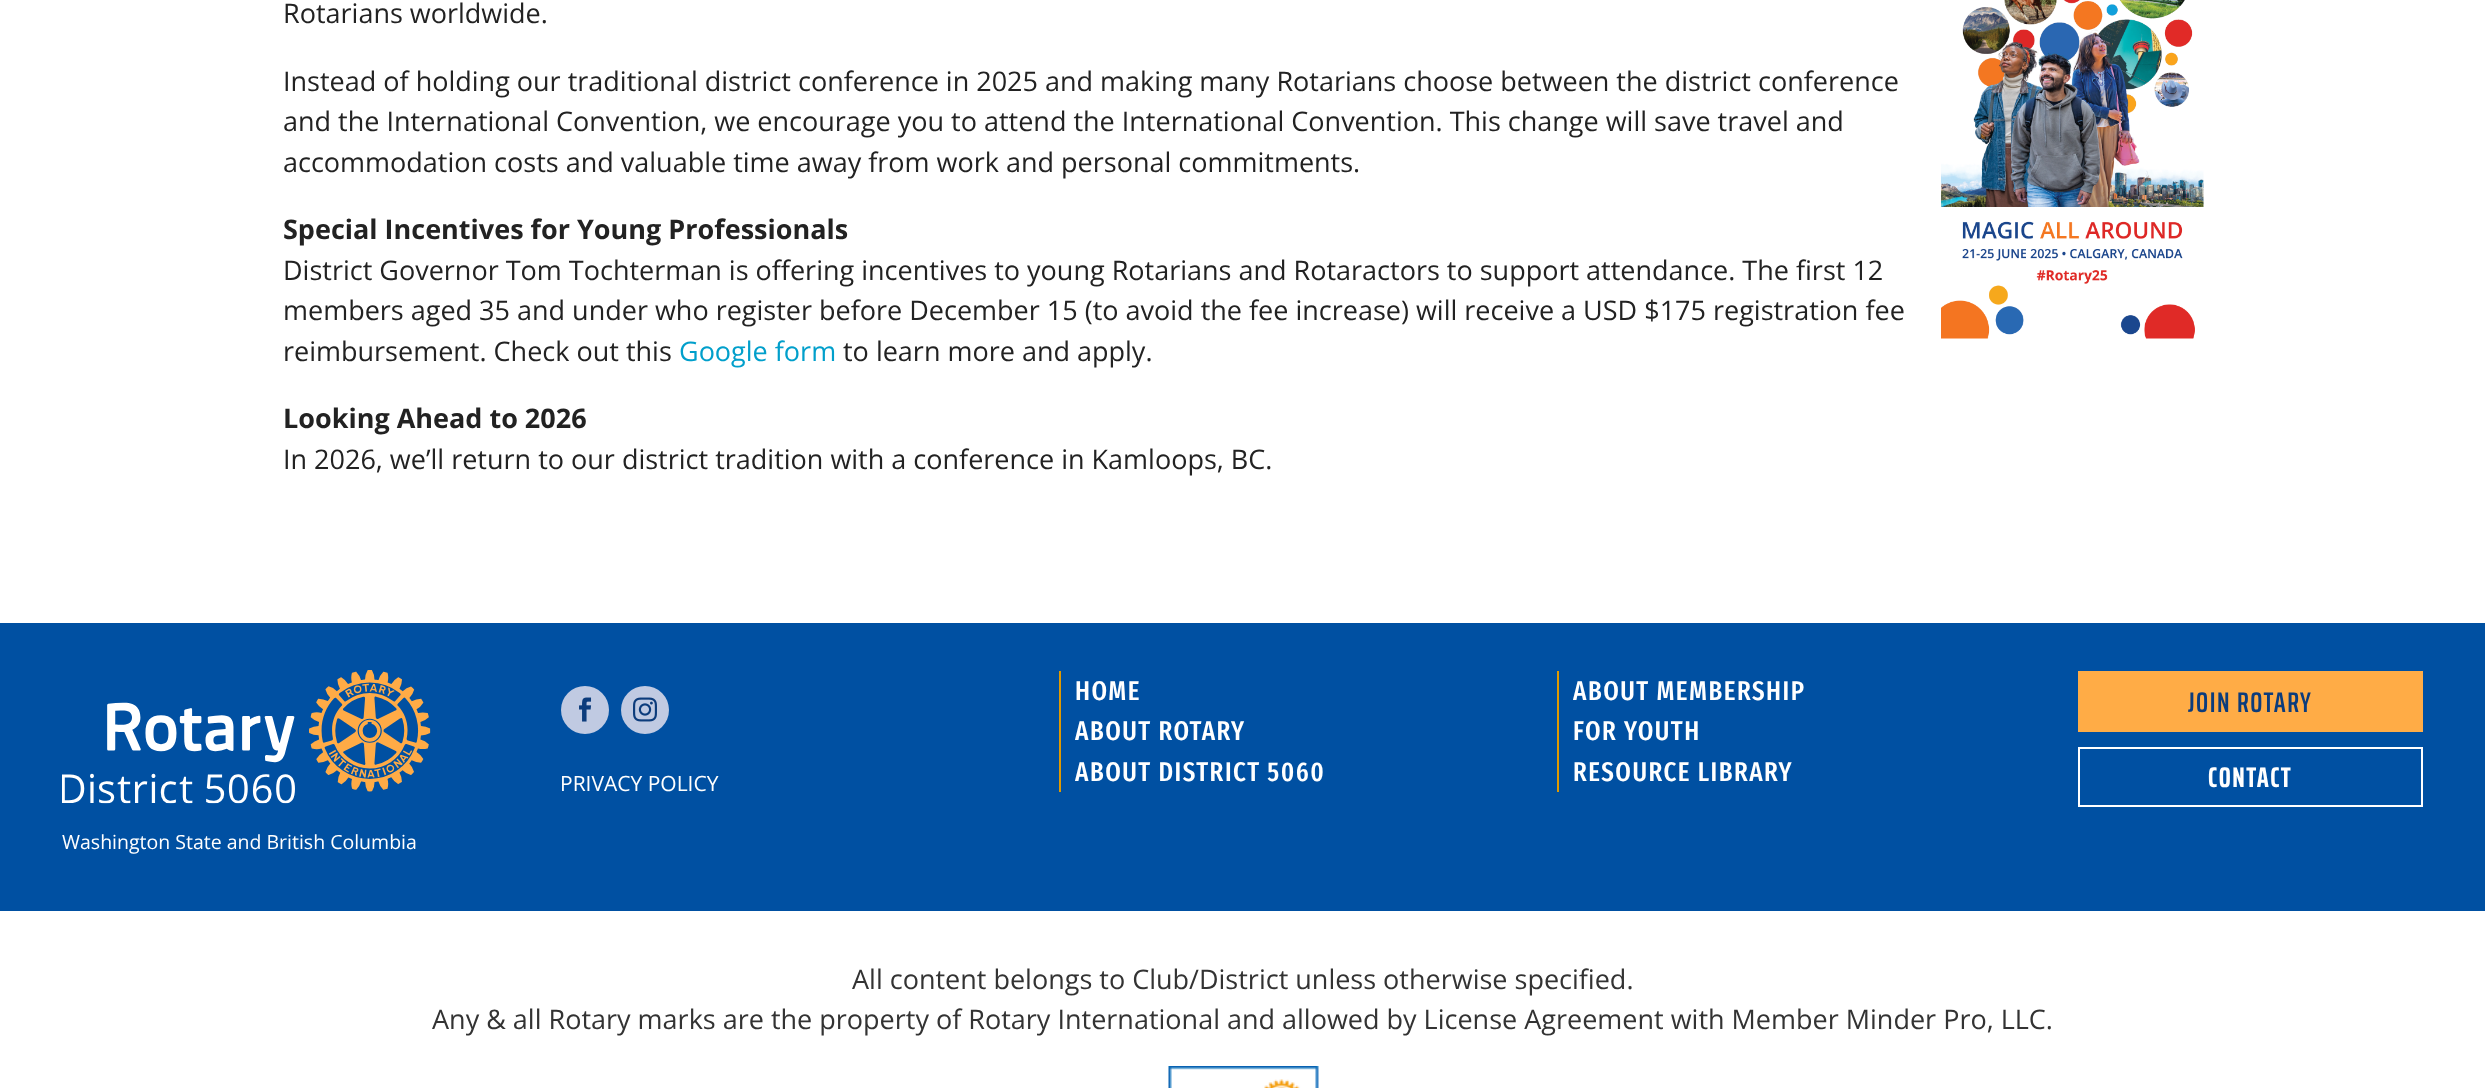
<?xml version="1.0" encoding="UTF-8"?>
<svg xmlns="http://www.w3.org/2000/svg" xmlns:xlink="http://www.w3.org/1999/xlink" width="2485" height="1088">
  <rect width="100%" height="100%" fill="#ffffff" />
  <image x="1941" y="0" width="263" height="339" xlink:href="image1.png" />
  <rect y="623" width="2485" height="288" fill="#0050a2" />
  <circle cx="585" cy="710" r="24" fill="#c0cae2" />
  <image x="579" y="697" width="13" height="25" xlink:href="image2.png" />
  <circle cx="645" cy="710" r="24" fill="#c0cae2" />
  <image x="633" y="697" width="24" height="25" xlink:href="image3.png" />
  <rect x="1059" y="671" width="2" height="121" fill="#e09900" />
  <rect x="1557" y="671" width="2" height="121" fill="#e09900" />
  <rect x="2078" y="671" width="345" height="61" fill="#ffac46" />
  <rect x="2079" y="748" width="343" height="58" fill="none" stroke="#ffffff" stroke-width="2" />
  <image x="62" y="670" width="369" height="134" xlink:href="image4.png" />
  <image x="1168" y="1066" width="151" height="22" xlink:href="image5.png" />
  <text x="283" y="23" style="font-family: Open Sans; font-size: 27px; fill: #222222">Rotarians worldwide.</text>
  <text x="283" y="91" style="font-family: Open Sans; font-size: 27px; fill: #222222">Instead of holding our traditional district conference in 2025 and making many Rotarians choose between the district conference</text>
  <text x="283" y="131" style="font-family: Open Sans; font-size: 27px; fill: #222222">and the International Convention, we encourage you to attend the International Convention. This change will save travel and</text>
  <text x="283" y="172" style="font-family: Open Sans; font-size: 27px; fill: #222222">accommodation costs and valuable time away from work and personal commitments.</text>
  <text x="283" y="239" style="font-family: Open Sans; font-size: 27px; font-weight: bold; fill: #222222">Special Incentives for Young Professionals</text>
  <text x="283" y="280" style="font-family: Open Sans; font-size: 27px; fill: #222222">District Governor Tom Tochterman is offering incentives to young Rotarians and Rotaractors to support attendance. The first 12</text>
  <text x="283" y="320" style="font-family: Open Sans; font-size: 27px; fill: #222222">members aged 35 and under who register before December 15 (to avoid the fee increase) will receive a USD $175 registration fee</text>
  <text x="283" y="361" style="font-family: Open Sans; font-size: 27px; fill: #222222">reimbursement. Check out this</text>
  <text x="679" y="361" style="font-family: Open Sans; font-size: 27px; fill: #019fcb">Google form</text>
  <text x="843" y="361" style="font-family: Open Sans; font-size: 27px; fill: #222222">to learn more and apply.</text>
  <text x="283" y="428" style="font-family: Open Sans; font-size: 27px; font-weight: bold; fill: #222222">Looking Ahead to 2026</text>
  <text x="283" y="469" style="font-family: Open Sans; font-size: 27px; fill: #222222">In 2026, we’ll return to our district tradition with a conference in Kamloops, BC.</text>
  <text x="560" y="791" style="font-family: Open Sans; font-size: 21px; fill: #ffffff">PRIVACY POLICY</text>
  <text x="1075" y="700" style="font-family: Fira Sans Extra Condensed; font-size: 27px; font-weight: 500; letter-spacing: 1.5px; fill: #ffffff">HOME</text>
  <text x="1075" y="740" style="font-family: Fira Sans Extra Condensed; font-size: 27px; font-weight: 500; letter-spacing: 1.5px; fill: #ffffff">ABOUT ROTARY</text>
  <text x="1075" y="781" style="font-family: Fira Sans Extra Condensed; font-size: 27px; font-weight: 500; letter-spacing: 1.5px; fill: #ffffff">ABOUT DISTRICT 5060</text>
  <text x="1573" y="700" style="font-family: Fira Sans Extra Condensed; font-size: 27px; font-weight: 500; letter-spacing: 1.5px; fill: #ffffff">ABOUT MEMBERSHIP</text>
  <text x="1573" y="740" style="font-family: Fira Sans Extra Condensed; font-size: 27px; font-weight: 500; letter-spacing: 1.5px; fill: #ffffff">FOR YOUTH</text>
  <text x="1573" y="781" style="font-family: Fira Sans Extra Condensed; font-size: 27px; font-weight: 500; letter-spacing: 1.5px; fill: #ffffff">RESOURCE LIBRARY</text>
  <text x="2188" y="712" style="font-family: Saira ExtraCondensed; font-size: 28.5px; font-weight: 600; letter-spacing: 1.5px; fill: #0c3c7c">JOIN ROTARY</text>
  <text x="2208" y="787" style="font-family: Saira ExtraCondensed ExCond; font-size: 28.5px; font-weight: bold; letter-spacing: 1.5px; fill: #ffffff">CONTACT</text>
  <text x="62" y="849" style="font-family: Open Sans; font-size: 19.5px; fill: #ffffff">Washington State and British Columbia</text>
  <text x="852" y="989" style="font-family: Open Sans; font-size: 27px; fill: #333333">All content belongs to Club/District unless otherwise specified.</text>
  <text x="432" y="1029" style="font-family: Open Sans; font-size: 27px; fill: #333333">Any &amp; all Rotary marks are the property of Rotary International and allowed by License Agreement with Member Minder Pro, LLC.</text>
</svg>
